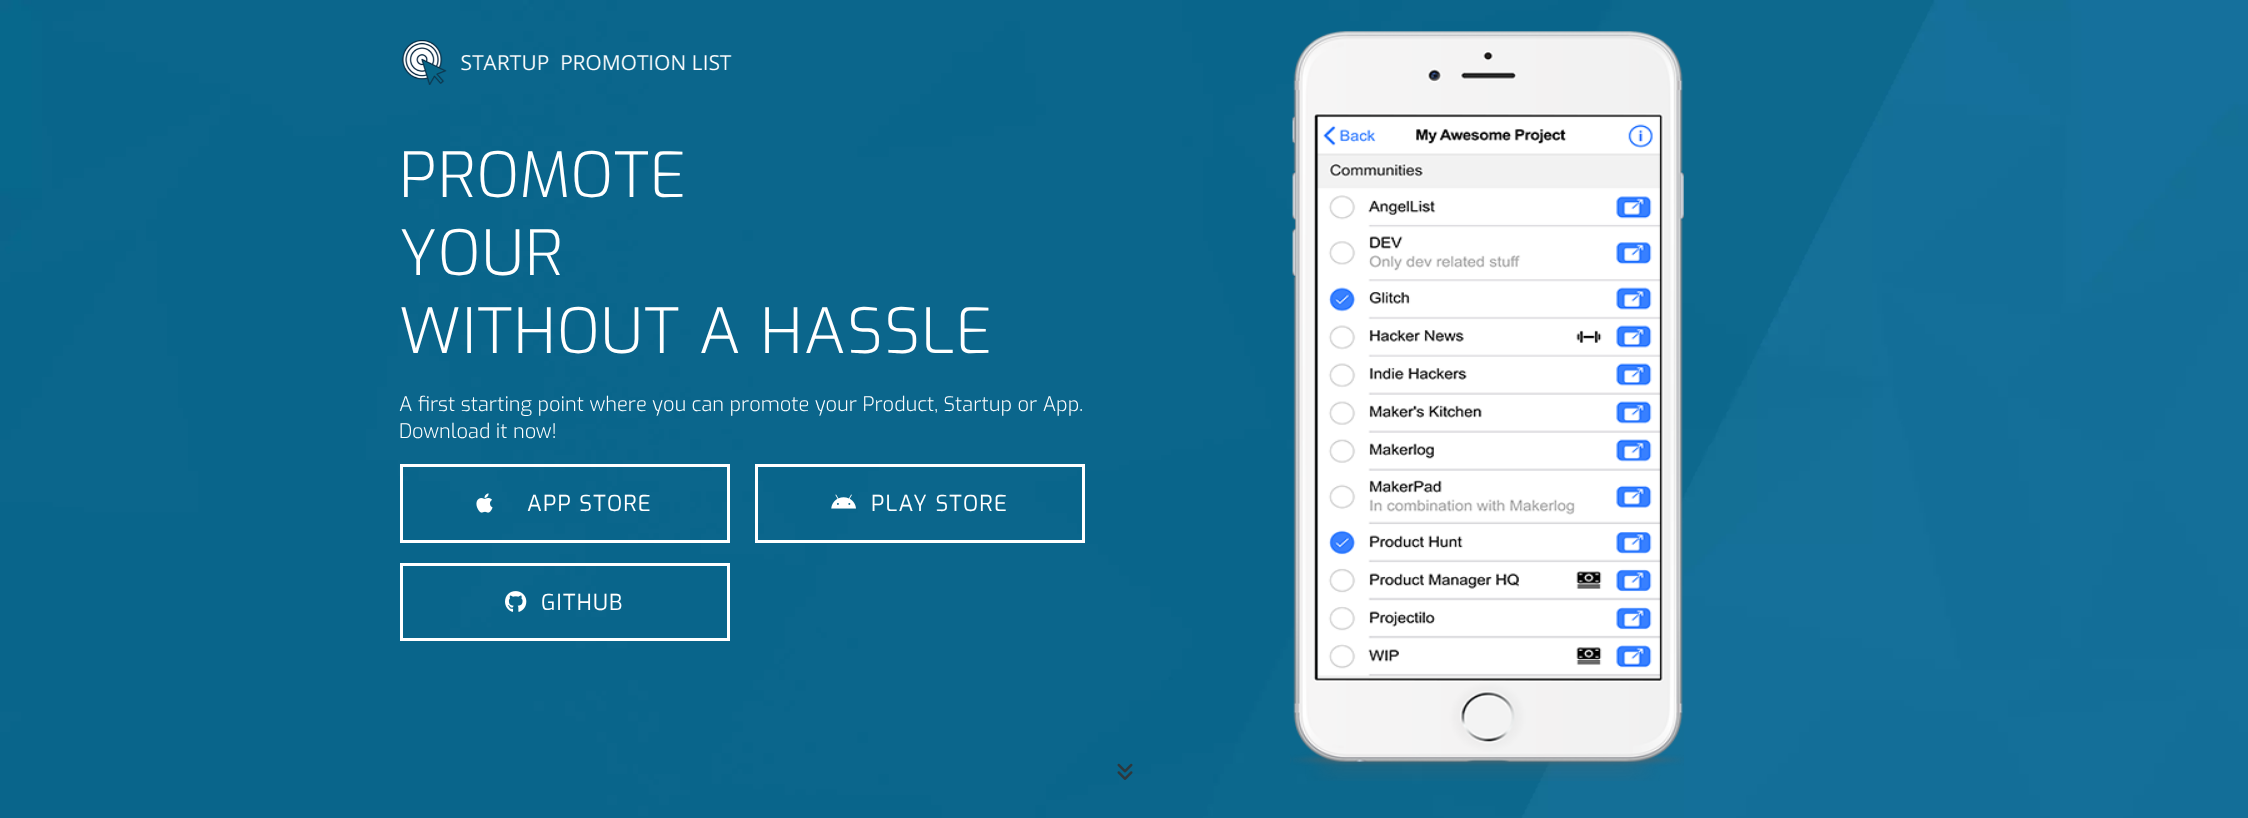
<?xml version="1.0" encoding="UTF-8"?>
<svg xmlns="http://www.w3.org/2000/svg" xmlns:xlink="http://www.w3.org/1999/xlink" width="2248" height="818">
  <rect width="100%" height="100%" fill="#ffffff" />
  <image x="0" y="0" width="2248" height="818" xlink:href="image2.png" />
  <image x="401" y="40" width="331" height="45" xlink:href="image1.png" />
  <rect x="401.5" y="465.5" width="327" height="76" fill="none" stroke="#ffffff" stroke-width="3" />
  <image x="476" y="493" width="17" height="20" xlink:href="image3.png" />
  <rect x="756.5" y="465.5" width="327" height="76" fill="none" stroke="#ffffff" stroke-width="3" />
  <image x="831" y="494" width="25" height="15" xlink:href="image4.png" />
  <rect x="401.5" y="564.5" width="327" height="75" fill="none" stroke="#ffffff" stroke-width="3" />
  <image x="505" y="591" width="22" height="21" xlink:href="image5.png" />
  <image x="1290" y="31" width="394" height="750" xlink:href="image6.png" />
  <image x="1117" y="763" width="16" height="17" xlink:href="image7.png" />
  <text x="399" y="197" style="font-family: Exo; font-size: 62.5px; font-weight: 300; letter-spacing: 1.25px; fill: #ffffff">PROMOTE</text>
  <text x="399" y="275" style="font-family: Exo; font-size: 62.5px; font-weight: 300; letter-spacing: 1.25px; fill: #ffffff">YOUR</text>
  <text x="399" y="353" style="font-family: Exo; font-size: 62.5px; font-weight: 300; letter-spacing: 1.25px; fill: #ffffff">WITHOUT A HASSLE</text>
  <text x="399" y="411" style="font-family: Exo; font-size: 20px; font-weight: 300; fill: #ffffff">A first starting point where you can promote your Product, Startup or App.</text>
  <text x="399" y="438" style="font-family: Exo; font-size: 20px; font-weight: 300; fill: #ffffff">Download it now!</text>
  <text x="527" y="511" style="font-family: Exo; font-size: 22px; letter-spacing: 1.25px; fill: #ffffff">APP STORE</text>
  <text x="871" y="511" style="font-family: Exo; font-size: 22px; letter-spacing: 1.25px; fill: #ffffff">PLAY STORE</text>
  <text x="541" y="610" style="font-family: Exo; font-size: 22px; letter-spacing: 1.25px; fill: #ffffff">GITHUB</text>
</svg>
